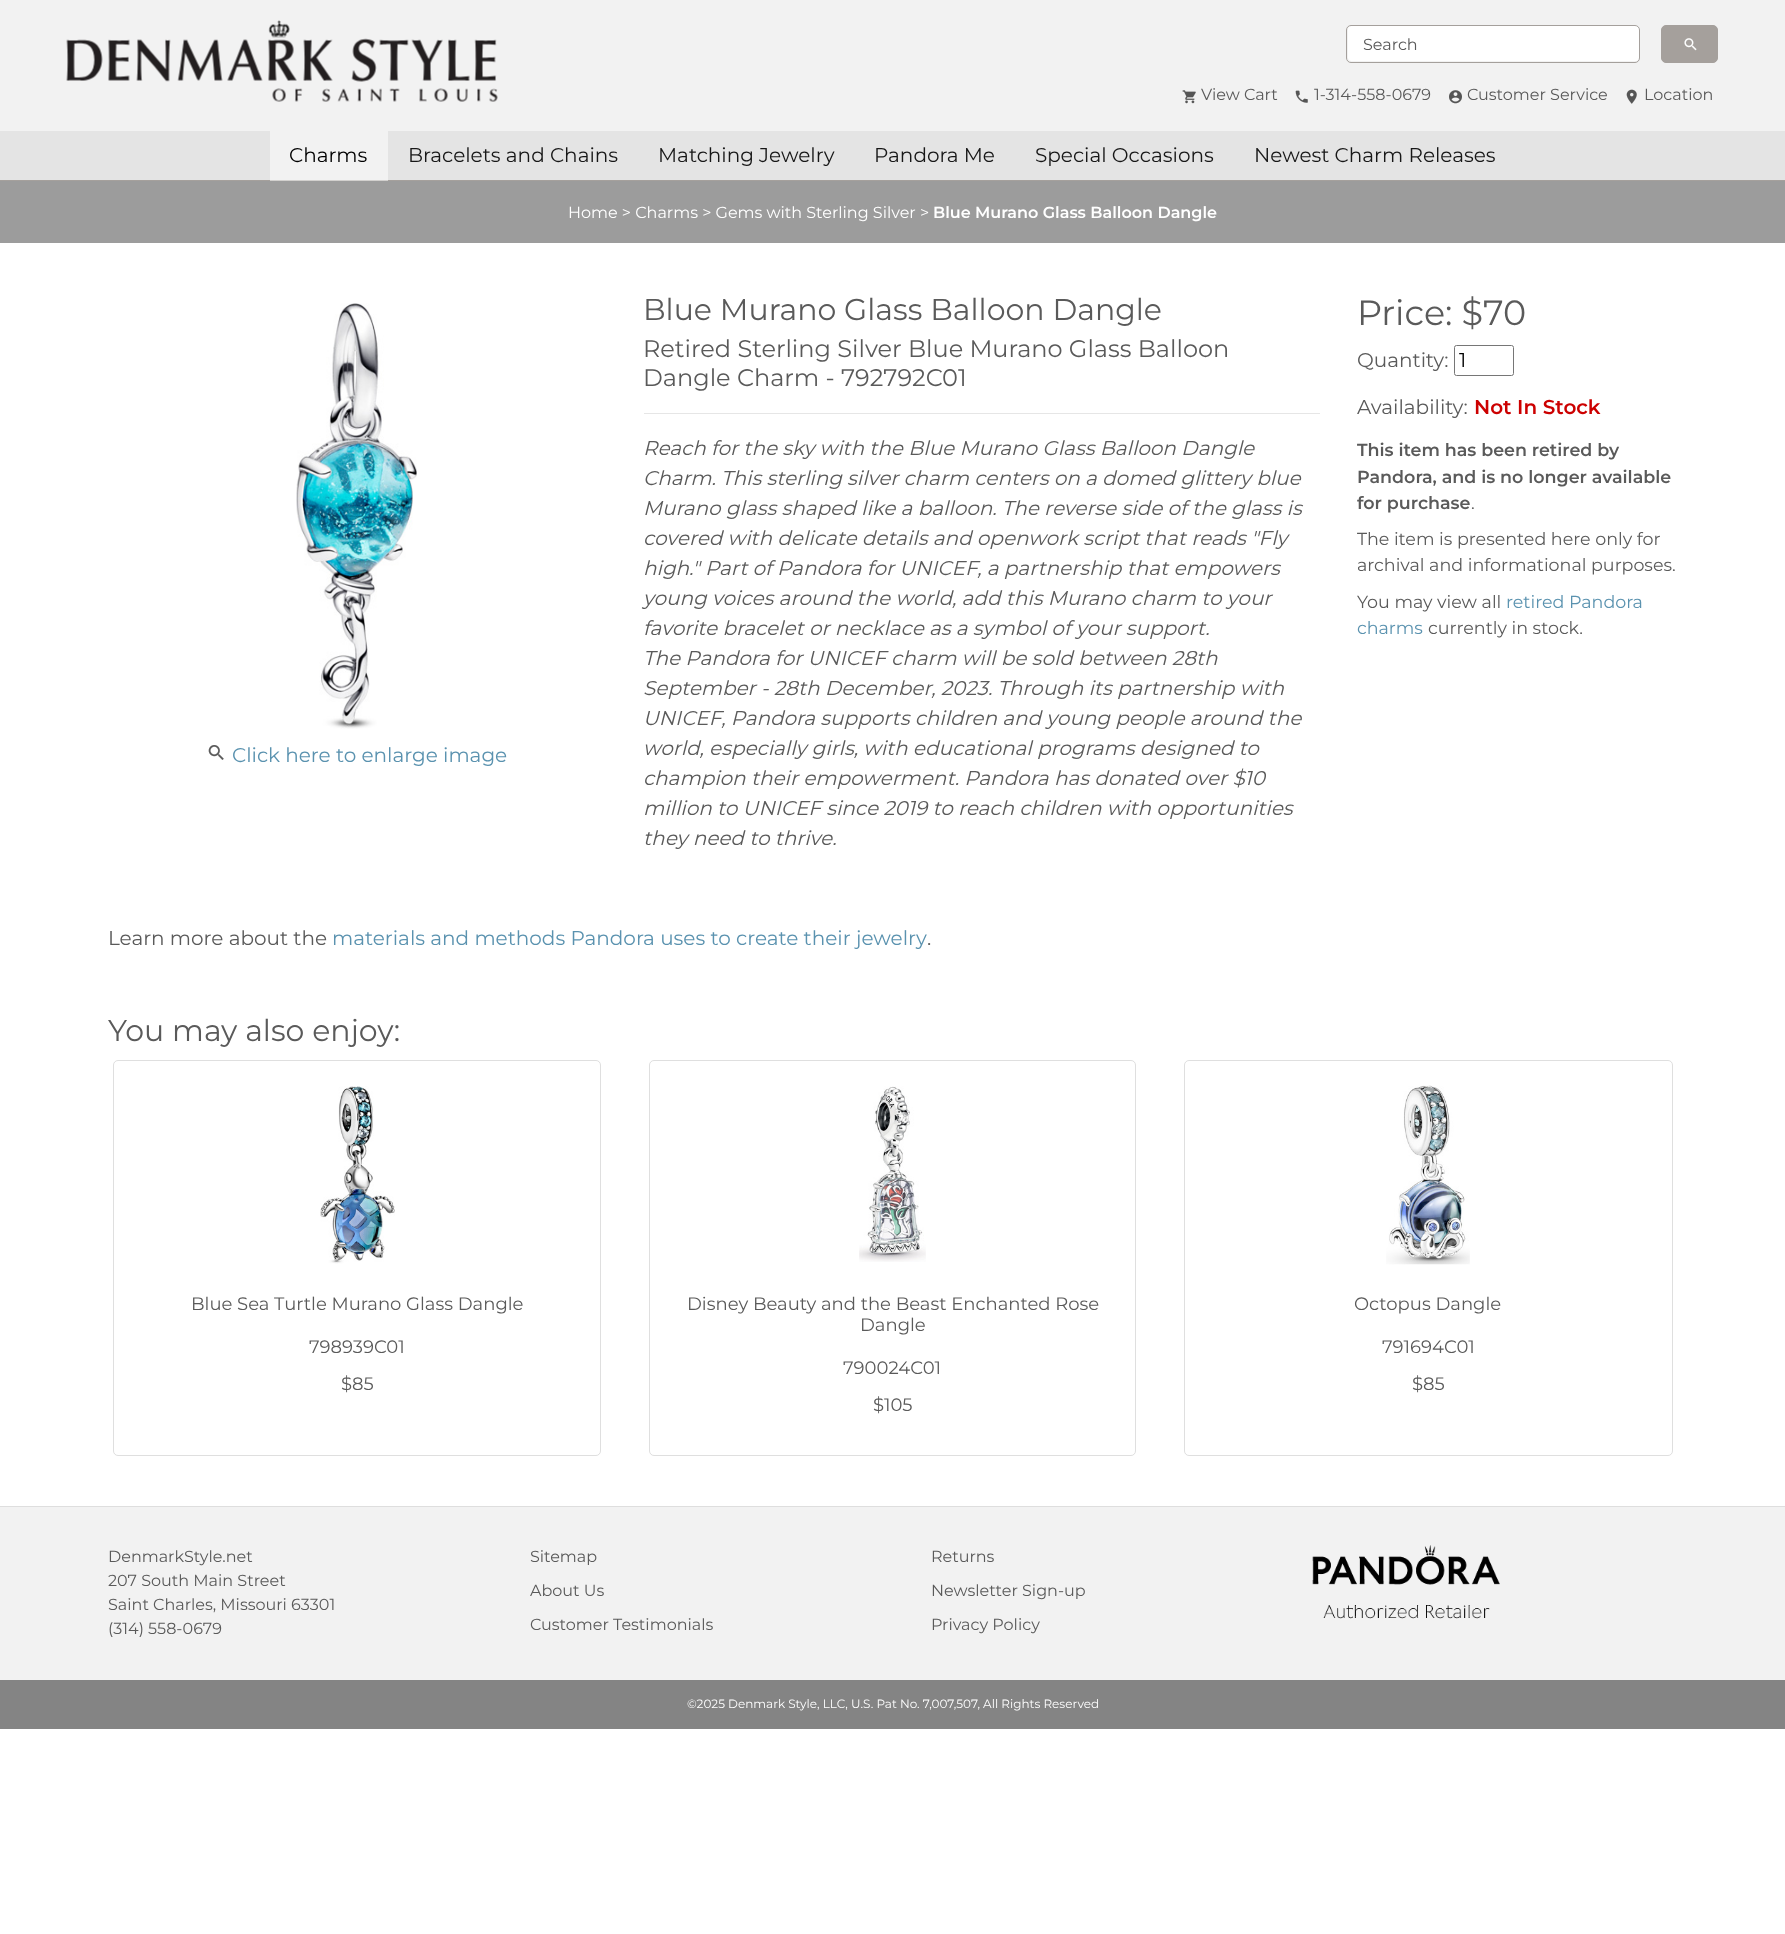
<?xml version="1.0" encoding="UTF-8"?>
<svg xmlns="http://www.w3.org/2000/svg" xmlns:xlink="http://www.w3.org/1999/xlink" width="1785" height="1934">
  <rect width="100%" height="100%" fill="#ffffff" />
  <rect width="1785" height="131" fill="#f2f2f2" />
  <rect y="180" width="1785" height="1" fill="#a5a09c" />
  <rect x="270" y="180" width="118" height="1" fill="#d2d0ce" />
  <image x="66" y="20" width="432" height="82" xlink:href="image1.png" />
  <rect x="1348" y="26" width="291" height="35" rx="4" fill="#ffffff" />
  <rect x="1346.5" y="25.5" width="293" height="37" rx="4.5" fill="none" stroke="#a5a09c" />
  <rect x="1661.5" y="25.5" width="56" height="37" rx="4.5" fill="#a5a09c" stroke="#a5a09c" />
  <image x="1684" y="38" width="13" height="13" xlink:href="image2.png" />
  <image x="1182" y="90" width="14" height="14" xlink:href="image3.png" />
  <image x="1295" y="90" width="13" height="13" xlink:href="image4.png" />
  <image x="1449" y="90" width="13" height="14" xlink:href="image5.png" />
  <image x="1626" y="89" width="11" height="15" xlink:href="image6.png" />
  <rect y="131" width="1785" height="49" fill="#e4e4e4" />
  <rect x="270" y="131" width="118" height="49" fill="#f2f2f2" />
  <rect y="181" width="1785" height="62" fill="#9c9c9c" />
  <image x="296" y="303" width="121" height="426" xlink:href="image7.png" />
  <image x="208" y="745" width="16" height="15" xlink:href="image8.png" />
  <rect x="644" y="413" width="676" height="1" fill="#e6e6e6" />
  <rect x="1454.5" y="345.5" width="59" height="30" rx="2" fill="none" stroke="#767676" />
  <rect x="113.5" y="1060.5" width="487" height="395" rx="4.5" fill="none" stroke="#dfdfdf" />
  <image x="320" y="1086" width="75" height="178" xlink:href="image9.png" />
  <rect x="649.5" y="1060.5" width="486" height="395" rx="4.5" fill="none" stroke="#dfdfdf" />
  <image x="859" y="1086" width="67" height="176" xlink:href="image10.png" />
  <rect x="1184.5" y="1060.5" width="488" height="395" rx="4.5" fill="none" stroke="#dfdfdf" />
  <image x="1386" y="1085" width="84" height="180" xlink:href="image11.png" />
  <rect y="1507" width="1785" height="173" fill="#f2f2f2" />
  <rect y="1506" width="1785" height="1" fill="#dedede" />
  <image x="1312" y="1545" width="188" height="74" xlink:href="image12.png" />
  <rect y="1680" width="1785" height="49" fill="#848484" />
  <text x="1363" y="50" style="font-family: Montserrat; font-size: 16px; fill: #5a5a5a">Search</text>
  <text x="1201" y="100" style="font-family: Montserrat; font-size: 16px; fill: #5a5a5a">View Cart</text>
  <text x="1314" y="100" style="font-family: Montserrat; font-size: 16px; fill: #5a5a5a">1-314-558-0679</text>
  <text x="1467" y="100" style="font-family: Montserrat; font-size: 16px; fill: #5a5a5a">Customer Service</text>
  <text x="1644" y="100" style="font-family: Montserrat; font-size: 16px; fill: #5a5a5a">Location</text>
  <text x="289" y="162" style="font-family: Montserrat; font-size: 20px; fill: #000000">Charms</text>
  <text x="408" y="162" style="font-family: Montserrat; font-size: 20px; fill: #171717">Bracelets and Chains</text>
  <text x="658" y="162" style="font-family: Montserrat; font-size: 20px; fill: #171717">Matching Jewelry</text>
  <text x="874" y="162" style="font-family: Montserrat; font-size: 20px; fill: #171717">Pandora Me</text>
  <text x="1035" y="162" style="font-family: Montserrat; font-size: 20px; fill: #171717">Special Occasions</text>
  <text x="1254" y="162" style="font-family: Montserrat; font-size: 20px; fill: #171717">Newest Charm Releases</text>
  <text x="568" y="218" style="font-family: Montserrat; font-size: 16px; fill: #ffffff">Home &gt; Charms &gt; Gems with Sterling Silver &gt;</text>
  <text x="933" y="218" style="font-family: Montserrat; font-size: 16px; font-weight: 600; fill: #ffffff">Blue Murano Glass Balloon Dangle</text>
  <text x="232" y="762" style="font-family: Montserrat; font-size: 20px; fill: #5a92af">Click here to enlarge image</text>
  <text x="643" y="320" style="font-family: Montserrat; font-size: 30px; fill: #5a5a5a">Blue Murano Glass Balloon Dangle</text>
  <text x="643" y="357" style="font-family: Montserrat; font-size: 24px; fill: #5a5a5a">Retired Sterling Silver Blue Murano Glass Balloon</text>
  <text x="643" y="386" style="font-family: Montserrat; font-size: 24px; fill: #5a5a5a">Dangle Charm - 792792C01</text>
  <text x="643" y="455" style="font-family: Montserrat; font-size: 20px; font-style: italic; fill: #5a5a5a">Reach for the sky with the Blue Murano Glass Balloon Dangle</text>
  <text x="643" y="485" style="font-family: Montserrat; font-size: 20px; font-style: italic; fill: #5a5a5a">Charm. This sterling silver charm centers on a domed glittery blue</text>
  <text x="643" y="515" style="font-family: Montserrat; font-size: 20px; font-style: italic; fill: #5a5a5a">Murano glass shaped like a balloon. The reverse side of the glass is</text>
  <text x="643" y="545" style="font-family: Montserrat; font-size: 20px; font-style: italic; fill: #5a5a5a">covered with delicate details and openwork script that reads "Fly</text>
  <text x="643" y="575" style="font-family: Montserrat; font-size: 20px; font-style: italic; fill: #5a5a5a">high." Part of Pandora for UNICEF, a partnership that empowers</text>
  <text x="643" y="605" style="font-family: Montserrat; font-size: 20px; font-style: italic; fill: #5a5a5a">young voices around the world, add this Murano charm to your</text>
  <text x="643" y="635" style="font-family: Montserrat; font-size: 20px; font-style: italic; fill: #5a5a5a">favorite bracelet or necklace as a symbol of your support.</text>
  <text x="643" y="665" style="font-family: Montserrat; font-size: 20px; font-style: italic; fill: #5a5a5a">The Pandora for UNICEF charm will be sold between 28th</text>
  <text x="643" y="695" style="font-family: Montserrat; font-size: 20px; font-style: italic; fill: #5a5a5a">September - 28th December, 2023. Through its partnership with</text>
  <text x="643" y="725" style="font-family: Montserrat; font-size: 20px; font-style: italic; fill: #5a5a5a">UNICEF, Pandora supports children and young people around the</text>
  <text x="643" y="755" style="font-family: Montserrat; font-size: 20px; font-style: italic; fill: #5a5a5a">world, especially girls, with educational programs designed to</text>
  <text x="643" y="785" style="font-family: Montserrat; font-size: 20px; font-style: italic; fill: #5a5a5a">champion their empowerment. Pandora has donated over $10</text>
  <text x="643" y="815" style="font-family: Montserrat; font-size: 20px; font-style: italic; fill: #5a5a5a">million to UNICEF since 2019 to reach children with opportunities</text>
  <text x="643" y="845" style="font-family: Montserrat; font-size: 20px; font-style: italic; fill: #5a5a5a">they need to thrive.</text>
  <text x="1357" y="325" style="font-family: Montserrat; font-size: 35px; fill: #5a5a5a">Price: $</text>
  <text x="1483" y="325" style="font-family: Montserrat; font-size: 35px; fill: #5a5a5a">70</text>
  <text x="1357" y="367" style="font-family: Montserrat; font-size: 20px; fill: #5a5a5a">Quantity:</text>
  <text x="1459" y="367" style="font-family: Montserrat; font-size: 20px; fill: #000000">1</text>
  <text x="1357" y="414" style="font-family: Montserrat; font-size: 20px; fill: #5a5a5a">Availability:</text>
  <text x="1474" y="414" style="font-family: Montserrat; font-size: 20px; font-weight: 600; fill: #cc0000">Not In Stock</text>
  <text x="1357" y="456" style="font-family: Montserrat; font-size: 17.5px; font-weight: 600; fill: #5a5a5a">This item has been retired by</text>
  <text x="1357" y="483" style="font-family: Montserrat; font-size: 17.5px; font-weight: 600; fill: #5a5a5a">Pandora, and is no longer available</text>
  <text x="1357" y="509" style="font-family: Montserrat; font-size: 17.5px; font-weight: 600; fill: #5a5a5a">for purchase</text>
  <text x="1471" y="509" style="font-family: Montserrat; font-size: 17.5px; fill: #5a5a5a">.</text>
  <text x="1357" y="545" style="font-family: Montserrat; font-size: 17.5px; fill: #5a5a5a">The item is presented here only for</text>
  <text x="1357" y="571" style="font-family: Montserrat; font-size: 17.5px; fill: #5a5a5a">archival and informational purposes.</text>
  <text x="1357" y="608" style="font-family: Montserrat; font-size: 17.5px; fill: #5a5a5a">You may view all</text>
  <text x="1506" y="608" style="font-family: Montserrat; font-size: 17.5px; fill: #5a92af">retired Pandora</text>
  <text x="1357" y="634" style="font-family: Montserrat; font-size: 17.5px; fill: #5a92af">charms</text>
  <text x="1428" y="634" style="font-family: Montserrat; font-size: 17.5px; fill: #5a5a5a">currently in stock.</text>
  <text x="108" y="945" style="font-family: Montserrat; font-size: 20px; fill: #5a5a5a">Learn more about the</text>
  <text x="332" y="945" style="font-family: Montserrat; font-size: 20px; fill: #5a92af">materials and methods Pandora uses to create their jewelry</text>
  <text x="927" y="945" style="font-family: Montserrat; font-size: 20px; fill: #5a5a5a">.</text>
  <text x="108" y="1041" style="font-family: Montserrat; font-size: 30px; fill: #5a5a5a">You may also enjoy:</text>
  <text x="191" y="1310" style="font-family: Montserrat; font-size: 18px; fill: #5a5a5a">Blue Sea Turtle Murano Glass Dangle</text>
  <text x="309" y="1353" style="font-family: Montserrat; font-size: 18px; fill: #5a5a5a">798939C01</text>
  <text x="341" y="1390" style="font-family: Montserrat; font-size: 18px; fill: #5a5a5a">$85</text>
  <text x="687" y="1310" style="font-family: Montserrat; font-size: 18px; fill: #5a5a5a">Disney Beauty and the Beast Enchanted Rose</text>
  <text x="860" y="1331" style="font-family: Montserrat; font-size: 18px; fill: #5a5a5a">Dangle</text>
  <text x="843" y="1374" style="font-family: Montserrat; font-size: 18px; fill: #5a5a5a">790024C01</text>
  <text x="873" y="1411" style="font-family: Montserrat; font-size: 18px; fill: #5a5a5a">$105</text>
  <text x="1354" y="1310" style="font-family: Montserrat; font-size: 18px; fill: #5a5a5a">Octopus Dangle</text>
  <text x="1382" y="1353" style="font-family: Montserrat; font-size: 18px; fill: #5a5a5a">791694C01</text>
  <text x="1412" y="1390" style="font-family: Montserrat; font-size: 18px; fill: #5a5a5a">$85</text>
  <text x="108" y="1562" style="font-family: Montserrat; font-size: 16px; fill: #5a5a5a">DenmarkStyle.net</text>
  <text x="108" y="1586" style="font-family: Montserrat; font-size: 16px; fill: #5a5a5a">207 South Main Street</text>
  <text x="108" y="1610" style="font-family: Montserrat; font-size: 16px; fill: #5a5a5a">Saint Charles, Missouri 63301</text>
  <text x="108" y="1634" style="font-family: Montserrat; font-size: 16px; fill: #5a5a5a">(314) 558-0679</text>
  <text x="530" y="1562" style="font-family: Montserrat; font-size: 16px; fill: #5a5a5a">Sitemap</text>
  <text x="530" y="1596" style="font-family: Montserrat; font-size: 16px; fill: #5a5a5a">About Us</text>
  <text x="530" y="1630" style="font-family: Montserrat; font-size: 16px; fill: #5a5a5a">Customer Testimonials</text>
  <text x="931" y="1562" style="font-family: Montserrat; font-size: 16px; fill: #5a5a5a">Returns</text>
  <text x="931" y="1596" style="font-family: Montserrat; font-size: 16px; fill: #5a5a5a">Newsletter Sign-up</text>
  <text x="931" y="1630" style="font-family: Montserrat; font-size: 16px; fill: #5a5a5a">Privacy Policy</text>
  <text x="687" y="1708" style="font-family: Montserrat; font-size: 12px; fill: #ffffff">©2025 Denmark Style, LLC, U.S. Pat No. 7,007,507, All Rights Reserved</text>
</svg>
